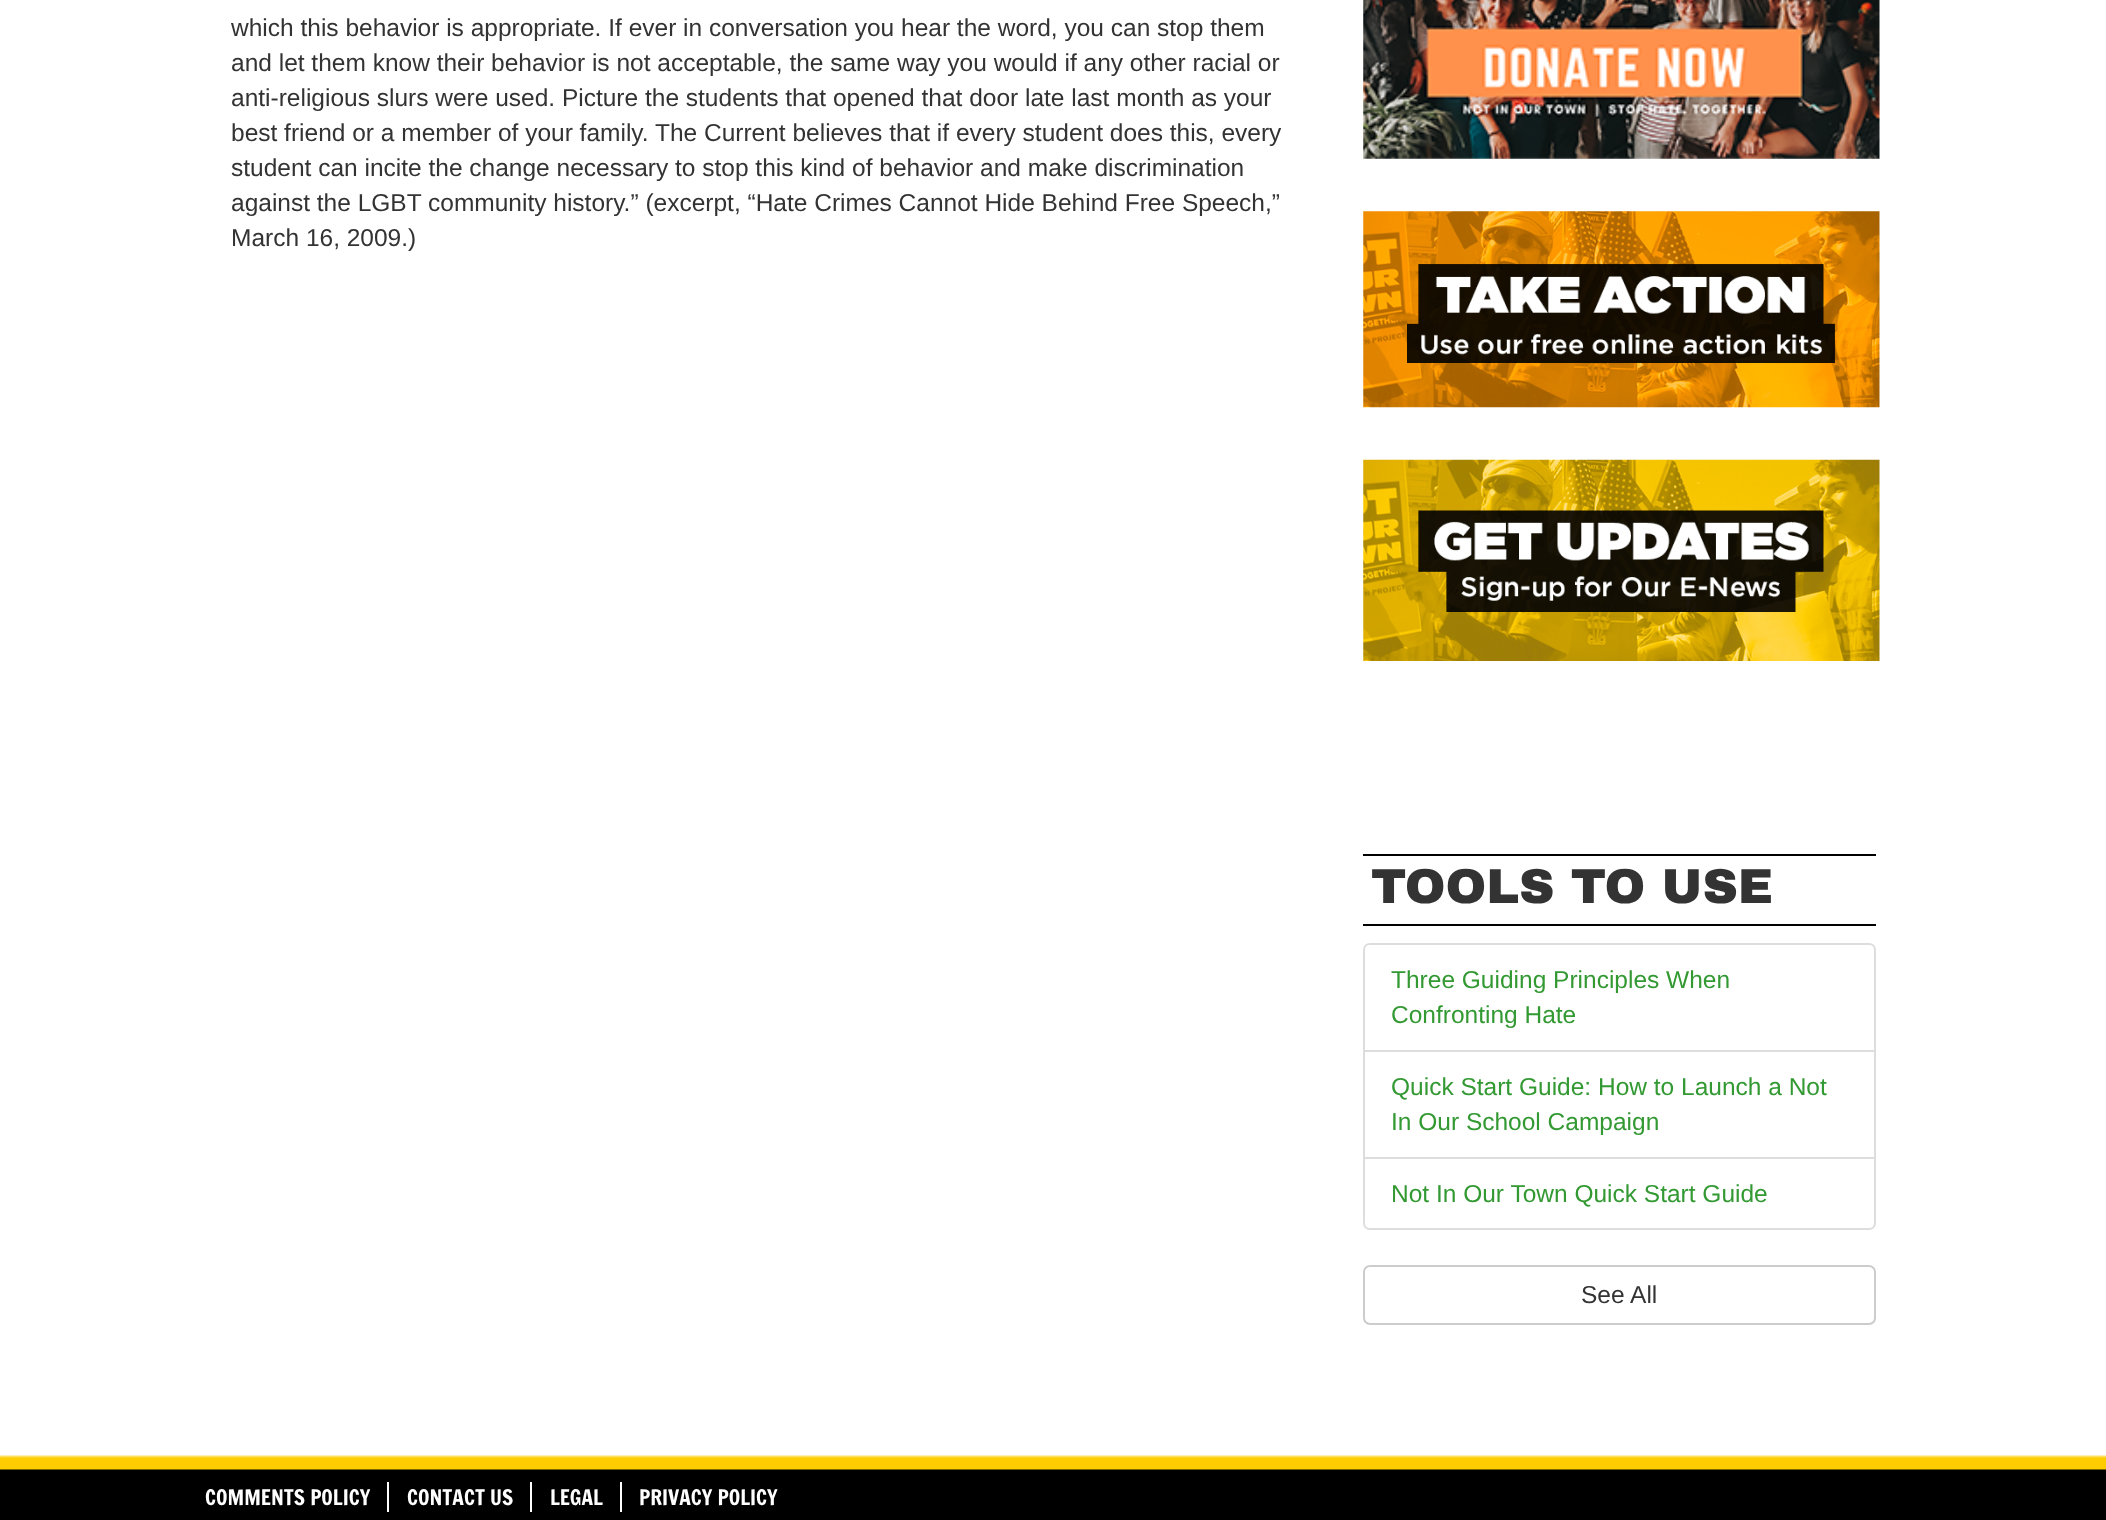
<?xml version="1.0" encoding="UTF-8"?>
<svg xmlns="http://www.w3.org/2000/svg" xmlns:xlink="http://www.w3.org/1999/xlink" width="2106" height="1520">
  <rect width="100%" height="100%" fill="#ffffff" />
  <image x="1363" y="0" width="517" height="159" xlink:href="image1.png" />
  <image x="1363" y="211" width="517" height="197" xlink:href="image2.png" />
  <image x="1363" y="459" width="517" height="202" xlink:href="image3.png" />
  <rect x="1363" y="854" width="513" height="2" fill="#000000" />
  <rect x="1363" y="924" width="513" height="2" fill="#000000" />
  <path d="M 1370 944 h 499 c 3.5 0 6 2.5 6 6 v 101 h -511 v -101 c 0 -3.5 2.5 -6 6 -6 z" fill="none" stroke="#dddddd" stroke-width="2" />
  <rect x="1364" y="1051" width="511" height="107" fill="none" stroke="#dddddd" stroke-width="2" />
  <path d="M 1364 1158 h 511 v 65 c 0 3.5 -2.5 6 -6 6 h -499 c -3.5 0 -6 -2.5 -6 -6 z" fill="#ffffff" stroke="#dddddd" stroke-width="2" />
  <rect x="1364" y="1266" width="511" height="58" rx="6" fill="none" stroke="#cccccc" stroke-width="2" />
  <image x="0" y="1455" width="2106" height="65" xlink:href="image4.png" />
  <rect x="387" y="1482" width="2" height="30" fill="#ffffff" />
  <rect x="530" y="1482" width="2" height="30" fill="#ffffff" />
  <rect x="620" y="1482" width="2" height="30" fill="#ffffff" />
  <text x="231" y="36" style="font-family: Liberation Sans; font-size: 24.5px; fill: #333333">which this behavior is appropriate. If ever in conversation you hear the word, you can stop them</text>
  <text x="231" y="71" style="font-family: Liberation Sans; font-size: 24.5px; fill: #333333">and let them know their behavior is not acceptable, the same way you would if any other racial or</text>
  <text x="231" y="106" style="font-family: Liberation Sans; font-size: 24.5px; fill: #333333">anti-religious slurs were used. Picture the students that opened that door late last month as your</text>
  <text x="231" y="141" style="font-family: Liberation Sans; font-size: 24.5px; fill: #333333">best friend or a member of your family. The Current believes that if every student does this, every</text>
  <text x="231" y="176" style="font-family: Liberation Sans; font-size: 24.5px; fill: #333333">student can incite the change necessary to stop this kind of behavior and make discrimination</text>
  <text x="231" y="211" style="font-family: Liberation Sans; font-size: 24.5px; fill: #333333">against the LGBT community history.” (excerpt, “Hate Crimes Cannot Hide Behind Free Speech,”</text>
  <text x="231" y="246" style="font-family: Liberation Sans; font-size: 24.5px; fill: #333333">March 16, 2009.)</text>
  <text x="1371" y="903" style="font-family: Archivo Black; font-size: 49px; font-weight: 900; fill: #333333">TOOLS TO USE</text>
  <text x="1391" y="988" style="font-family: Liberation Sans; font-size: 24.5px; fill: #339933">Three Guiding Principles When</text>
  <text x="1391" y="1023" style="font-family: Liberation Sans; font-size: 24.5px; fill: #339933">Confronting Hate</text>
  <text x="1391" y="1095" style="font-family: Liberation Sans; font-size: 24.5px; fill: #339933">Quick Start Guide: How to Launch a Not</text>
  <text x="1391" y="1130" style="font-family: Liberation Sans; font-size: 24.5px; fill: #339933">In Our School Campaign</text>
  <text x="1391" y="1202" style="font-family: Liberation Sans; font-size: 24.5px; fill: #339933">Not In Our Town Quick Start Guide</text>
  <text x="1581" y="1303" style="font-family: Liberation Sans; font-size: 24.5px; fill: #333333">See All</text>
  <text x="205" y="1505" style="font-family: Francois One; font-size: 21px; fill: #ffffff">COMMENTS POLICY</text>
  <text x="407" y="1505" style="font-family: Francois One; font-size: 21px; fill: #ffffff">CONTACT US</text>
  <text x="550" y="1505" style="font-family: Francois One; font-size: 21px; fill: #ffffff">LEGAL</text>
  <text x="639" y="1505" style="font-family: Francois One; font-size: 21px; fill: #ffffff">PRIVACY POLICY</text>
</svg>
